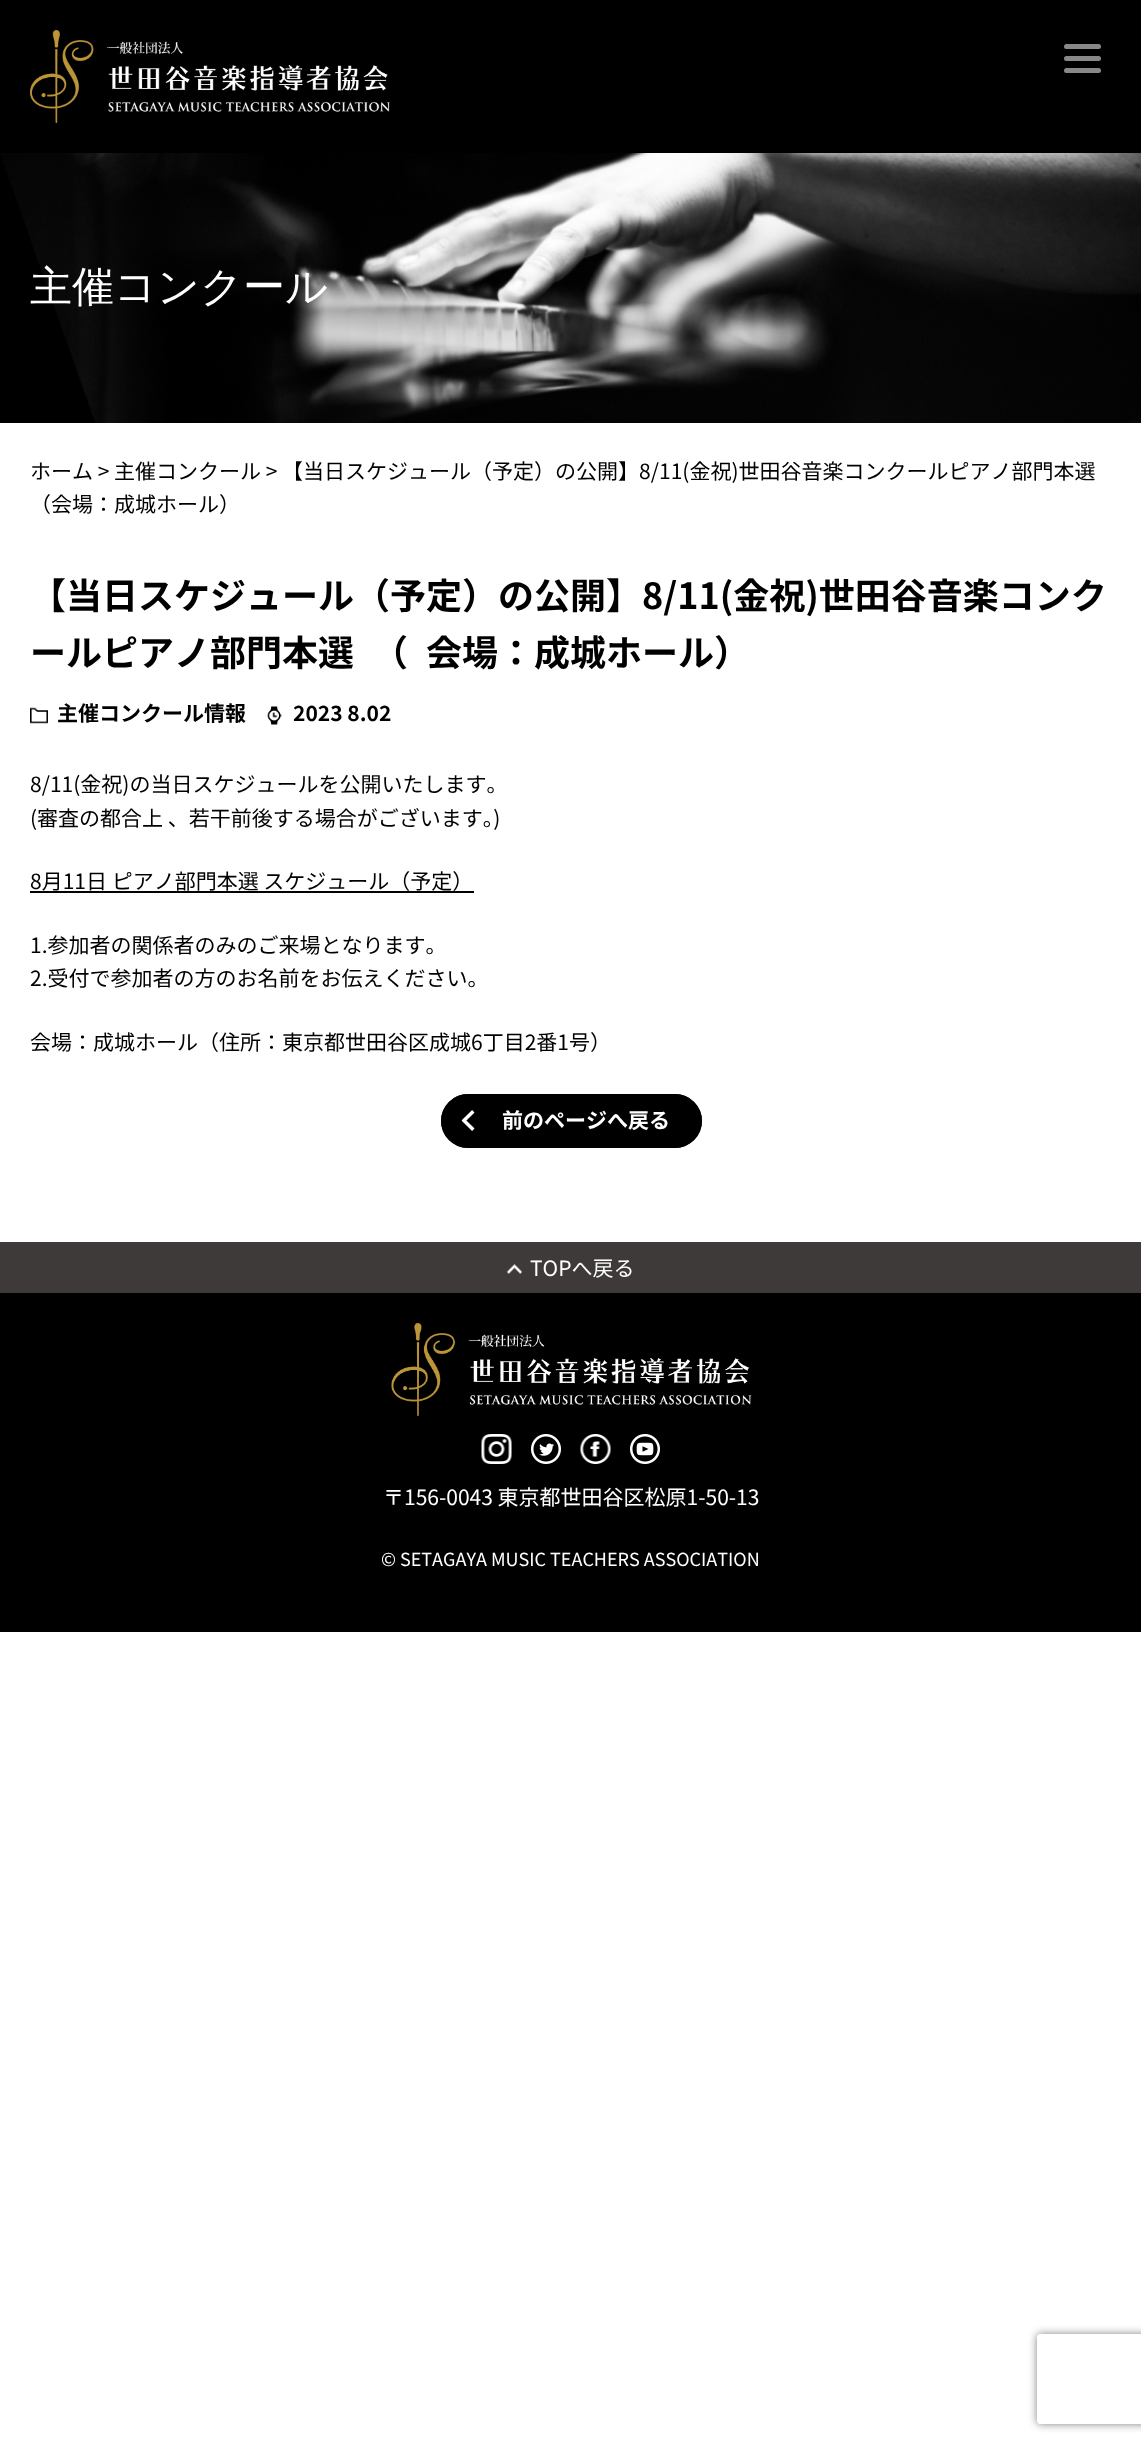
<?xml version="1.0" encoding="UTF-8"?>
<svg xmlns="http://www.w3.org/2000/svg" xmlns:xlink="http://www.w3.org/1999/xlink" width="1141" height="2445">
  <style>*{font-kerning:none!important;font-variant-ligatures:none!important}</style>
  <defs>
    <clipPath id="clip1"><path d="M 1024 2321 h 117 v 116 h -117 z m 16 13 h 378 c 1.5 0 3 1.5 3 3 v 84 c 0 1.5 -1.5 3 -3 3 h -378 c -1.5 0 -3 -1.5 -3 -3 v -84 c 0 -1.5 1.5 -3 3 -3 z" clip-rule="evenodd" /></clipPath>
  </defs>
  <rect width="100%" height="100%" fill="#ffffff" />
  <rect width="1141" height="153" fill="#000000" />
  <image x="30" y="30" width="360" height="93" xlink:href="image1.png" />
  <rect x="1064" y="56" width="37" height="5" rx="2.5" fill="#888888" />
  <rect x="1064" y="44" width="37" height="5" rx="2.5" fill="#888888" />
  <rect x="1064" y="68" width="37" height="5" rx="2.5" fill="#888888" />
  <rect y="153" width="97" height="270" fill="#000000" />
  <image x="0" y="153" width="1141" height="270" xlink:href="image2.png" />
  <image x="30" y="707" width="18" height="17" xlink:href="image3.png" />
  <image x="267" y="706" width="15" height="19" xlink:href="image4.png" />
  <rect x="30" y="891" width="444" height="2" fill="#000000" />
  <rect x="441" y="1094" width="261" height="54" rx="27" fill="#000000" />
  <image x="461" y="1110" width="14" height="21" xlink:href="image5.png" />
  <rect x="442" y="1095" width="259" height="52" rx="26" fill="none" stroke="#000000" stroke-width="2" />
  <rect y="1242" width="1141" height="51" fill="#3e3a39" />
  <image x="507" y="1264" width="15" height="10" xlink:href="image6.png" />
  <rect y="1293" width="1141" height="339" fill="#000000" />
  <image x="391" y="1323" width="361" height="93" xlink:href="image7.png" />
  <image x="481" y="1434" width="31" height="30" xlink:href="image8.png" />
  <image x="531" y="1434" width="30" height="30" xlink:href="image9.png" />
  <image x="580" y="1434" width="31" height="30" xlink:href="image10.png" />
  <image x="630" y="1434" width="30" height="30" xlink:href="image11.png" />
  <g clip-path="url(#clip1)">
    <rect x="1037" y="2334" width="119" height="90" rx="3" fill="#808080" filter="blur(4px)" />
  </g>
  <text x="30" y="301" style="font-family: WenQuanYi Zen Hei; font-size: 42px; font-weight: 500; fill: #ffffff">主催コンクール</text>
  <text x="30" y="479" style="font-family: Noto Sans JP; font-size: 21px; fill: #000000">ホーム &gt; 主催コンクール &gt; 【当日スケジュール（予定）の公開】8/11(金祝)世田谷音楽コンクールピアノ部門本選</text>
  <text x="30" y="512" style="font-family: Noto Sans JP; font-size: 21px; fill: #000000">（会場：成城ホール）</text>
  <text x="30" y="609" style="font-family: Noto Sans JP; font-size: 36px; font-weight: bold; fill: #000000">【当日スケジュール（予定）の公開】8/11(金祝)世田谷音楽コンク</text>
  <text x="30" y="666" style="font-family: Noto Sans JP; font-size: 36px; font-weight: bold; fill: #000000">ールピアノ部門本選　（</text>
  <text x="426" y="666" style="font-family: Noto Sans JP; font-size: 36px; font-weight: bold; fill: #000000">会場：成城ホール）</text>
  <text x="57" y="721" style="font-family: Noto Sans JP; font-size: 21px; font-weight: bold; fill: #000000">主催コンクール情報</text>
  <text x="293" y="721" style="font-family: Noto Sans JP; font-size: 21px; font-weight: bold; fill: #000000">2023 8.02</text>
  <text x="30" y="792" style="font-family: Noto Sans JP; font-size: 21px; fill: #000000">8/11(金祝)の当日スケジュールを公開いたします。</text>
  <text x="30" y="826" style="font-family: Noto Sans JP; font-size: 21px; fill: #000000">(審査の都合上 、若干前後する場合がございます。)</text>
  <text x="30" y="889" style="font-family: Noto Sans JP; font-size: 21px; fill: #000000">8月11日 ピアノ部門本選 スケジュール（予定）</text>
  <text x="30" y="953" style="font-family: Noto Sans JP; font-size: 21px; fill: #000000">1.参加者の関係者のみのご来場となります。</text>
  <text x="30" y="986" style="font-family: Noto Sans JP; font-size: 21px; fill: #000000">2.受付で参加者の方のお名前をお伝えください。</text>
  <text x="30" y="1050" style="font-family: Noto Sans JP; font-size: 21px; fill: #000000">会場：成城ホール（住所：東京都世田谷区成城6丁目2番1号）</text>
  <text x="502" y="1128" style="font-family: Noto Sans JP; font-size: 21px; font-weight: bold; fill: #ffffff">前のページへ戻る</text>
  <text x="530" y="1276" style="font-family: Noto Sans JP; font-size: 21px; fill: #ffffff">TOPへ戻る</text>
  <text x="383" y="1505" style="font-family: Noto Sans JP; font-size: 21px; fill: #ffffff">〒156-0043 東京都世田谷区松原1-50-13</text>
  <text x="381" y="1566" style="font-family: Noto Sans JP; font-size: 18px; fill: #ffffff">© SETAGAYA MUSIC TEACHERS ASSOCIATION</text>
</svg>
